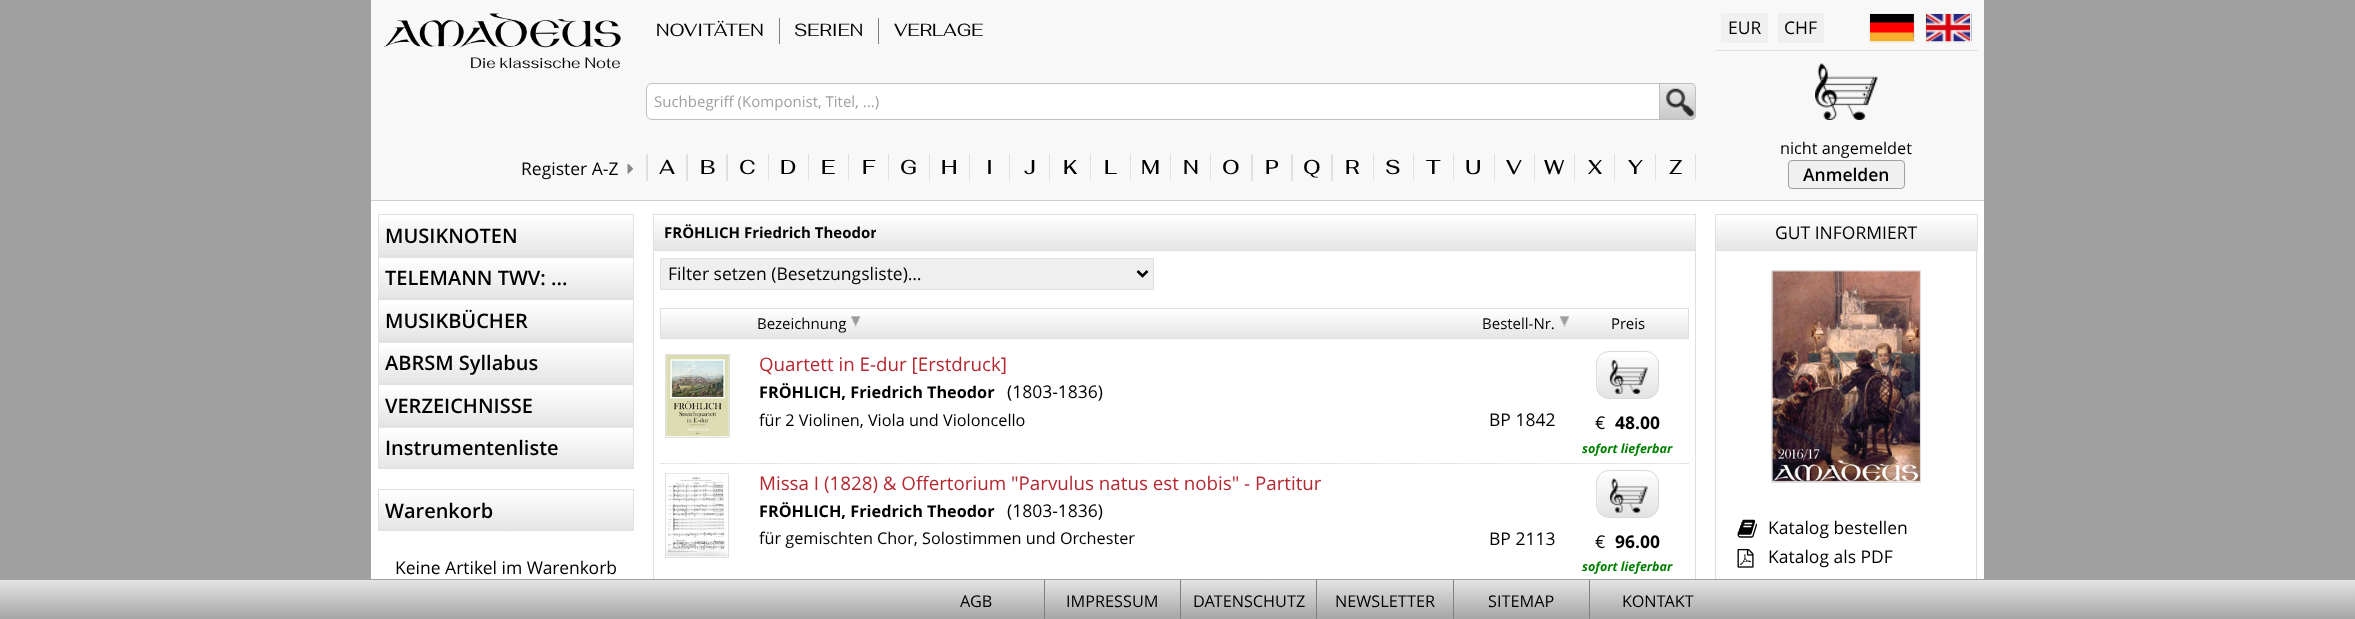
<?xml version="1.0" encoding="UTF-8"?>
<svg xmlns="http://www.w3.org/2000/svg" xmlns:xlink="http://www.w3.org/1999/xlink" width="2355" height="619">
  <defs>
    <linearGradient id="g1" gradientUnits="userSpaceOnUse" x1="506" y1="255" x2="506" y2="215"><stop offset="0" stop-color="#e5e5e5" /><stop offset="1" stop-color="#ffffff" /></linearGradient>
    <linearGradient id="g2" gradientUnits="userSpaceOnUse" x1="506" y1="258" x2="506" y2="218"><stop offset="0" stop-color="#e5e5e5" /><stop offset="1" stop-color="#ffffff" /></linearGradient>
    <linearGradient id="g3" gradientUnits="userSpaceOnUse" x1="506" y1="298" x2="506" y2="258"><stop offset="0" stop-color="#e5e5e5" /><stop offset="1" stop-color="#ffffff" /></linearGradient>
    <linearGradient id="g4" gradientUnits="userSpaceOnUse" x1="506" y1="340" x2="506" y2="300"><stop offset="0" stop-color="#e5e5e5" /><stop offset="1" stop-color="#ffffff" /></linearGradient>
    <linearGradient id="g5" gradientUnits="userSpaceOnUse" x1="506" y1="343" x2="506" y2="303"><stop offset="0" stop-color="#e5e5e5" /><stop offset="1" stop-color="#ffffff" /></linearGradient>
    <linearGradient id="g6" gradientUnits="userSpaceOnUse" x1="506" y1="383" x2="506" y2="343"><stop offset="0" stop-color="#e5e5e5" /><stop offset="1" stop-color="#ffffff" /></linearGradient>
    <linearGradient id="g7" gradientUnits="userSpaceOnUse" x1="506" y1="425" x2="506" y2="385"><stop offset="0" stop-color="#e5e5e5" /><stop offset="1" stop-color="#ffffff" /></linearGradient>
    <linearGradient id="g8" gradientUnits="userSpaceOnUse" x1="506" y1="428" x2="506" y2="388"><stop offset="0" stop-color="#e5e5e5" /><stop offset="1" stop-color="#ffffff" /></linearGradient>
    <linearGradient id="g9" gradientUnits="userSpaceOnUse" x1="506" y1="468" x2="506" y2="428"><stop offset="0" stop-color="#e5e5e5" /><stop offset="1" stop-color="#ffffff" /></linearGradient>
    <linearGradient id="g10" gradientUnits="userSpaceOnUse" x1="506" y1="530" x2="506" y2="490"><stop offset="0" stop-color="#e5e5e5" /><stop offset="1" stop-color="#ffffff" /></linearGradient>
    <linearGradient id="g11" gradientUnits="userSpaceOnUse" x1="1174" y1="250" x2="1174" y2="215"><stop offset="0" stop-color="#e5e5e5" /><stop offset="1" stop-color="#ffffff" /></linearGradient>
    <linearGradient id="g12" gradientUnits="userSpaceOnUse" x1="1174" y1="338" x2="1174" y2="309"><stop offset="0" stop-color="#e5e5e5" /><stop offset="1" stop-color="#ffffff" /></linearGradient>
    <linearGradient id="g13" gradientUnits="userSpaceOnUse" x1="1846" y1="250" x2="1846" y2="215"><stop offset="0" stop-color="#e5e5e5" /><stop offset="1" stop-color="#ffffff" /></linearGradient>
    <linearGradient id="g14" gradientUnits="userSpaceOnUse" x1="1178" y1="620" x2="1178" y2="580"><stop offset="0" stop-color="#a4a4a4" /><stop offset="1" stop-color="#e4e4e4" /></linearGradient>
    <clipPath id="clip1"><rect x="660" y="224" width="216" height="17" /></clipPath>
  </defs>
  <rect width="100%" height="100%" fill="#a0a0a0" />
  <rect x="371" y="201" width="1613" height="378" fill="#ffffff" />
  <rect x="371" width="1613" height="200" fill="#f8f8f8" />
  <rect x="371" y="200" width="1613" height="1" fill="#d0d0d0" />
  <image x="384" y="13" width="237" height="35" xlink:href="image1.png" />
  <image x="627" y="163" width="6" height="11" xlink:href="image2.png" />
  <rect x="779" y="18" width="1" height="26" fill="#808080" />
  <rect x="878" y="18" width="1" height="26" fill="#808080" />
  <rect x="646.5" y="83.5" width="1049" height="36" rx="5.5" fill="#ffffff" stroke="#c0c0c0" />
  <image x="1660" y="83" width="36" height="37" xlink:href="image3.png" />
  <path d="M 1659.5 83.5 h 31.5 c 2.5 0 4.5 2 4.5 4.5 v 27 c 0 2.5 -2 4.5 -4.5 4.5 h -31.5 z" fill="none" stroke="#c0c0c0" />
  <rect x="646" y="154" width="1050" height="27" fill="#e0e0e0" />
  <rect x="648" y="154" width="38" height="27" fill="#f8f8f8" />
  <rect x="688" y="154" width="38" height="27" fill="#f8f8f8" />
  <rect x="728" y="154" width="40" height="27" fill="#f8f8f8" />
  <rect x="769" y="154" width="39" height="27" fill="#f8f8f8" />
  <rect x="809" y="154" width="39" height="27" fill="#f8f8f8" />
  <rect x="849" y="154" width="39" height="27" fill="#f8f8f8" />
  <rect x="889" y="154" width="40" height="27" fill="#f8f8f8" />
  <rect x="930" y="154" width="39" height="27" fill="#f8f8f8" />
  <rect x="970" y="154" width="39" height="27" fill="#f8f8f8" />
  <rect x="1010" y="154" width="39" height="27" fill="#f8f8f8" />
  <rect x="1050" y="154" width="40" height="27" fill="#f8f8f8" />
  <rect x="1091" y="154" width="39" height="27" fill="#f8f8f8" />
  <rect x="1131" y="154" width="39" height="27" fill="#f8f8f8" />
  <rect x="1171" y="154" width="39" height="27" fill="#f8f8f8" />
  <rect x="1211" y="154" width="40" height="27" fill="#f8f8f8" />
  <rect x="1253" y="154" width="38" height="27" fill="#f8f8f8" />
  <rect x="1293" y="154" width="38" height="27" fill="#f8f8f8" />
  <rect x="1333" y="154" width="40" height="27" fill="#f8f8f8" />
  <rect x="1374" y="154" width="39" height="27" fill="#f8f8f8" />
  <rect x="1414" y="154" width="39" height="27" fill="#f8f8f8" />
  <rect x="1454" y="154" width="40" height="27" fill="#f8f8f8" />
  <rect x="1495" y="154" width="39" height="27" fill="#f8f8f8" />
  <rect x="1535" y="154" width="39" height="27" fill="#f8f8f8" />
  <rect x="1575" y="154" width="39" height="27" fill="#f8f8f8" />
  <rect x="1615" y="154" width="40" height="27" fill="#f8f8f8" />
  <rect x="1656" y="154" width="39" height="27" fill="#f8f8f8" />
  <rect x="1715" y="50" width="263" height="1" fill="#e0e0e0" />
  <rect x="1721" y="13" width="47" height="30" fill="#f0f0f0" />
  <rect x="1778" y="13" width="46" height="30" fill="#f0f0f0" />
  <image x="1870" y="14" width="44" height="28" xlink:href="image4.png" />
  <rect x="1869.5" y="13.5" width="45" height="29" fill="none" stroke="#f0f0f0" />
  <image x="1926" y="13" width="46" height="29" xlink:href="image5.png" />
  <rect x="1925.5" y="13.5" width="45" height="29" fill="none" stroke="#f0f0f0" />
  <image x="1815" y="63" width="63" height="57" xlink:href="image6.png" />
  <rect x="1788.5" y="160.5" width="116" height="28" rx="3.5" fill="#f0f0f0" stroke="#a0a0a0" />
  <rect x="379" y="219" width="254" height="36" fill="url(#g1)" />
  <rect x="378.5" y="214.5" width="255" height="41" fill="none" stroke="#e0e0e0" />
  <rect x="378" y="257" width="256" height="1" fill="url(#g2)" />
  <rect x="379" y="262" width="254" height="36" fill="url(#g3)" />
  <rect x="378.5" y="256.5" width="255" height="42" fill="none" stroke="#e0e0e0" />
  <rect x="379" y="304" width="254" height="36" fill="url(#g4)" />
  <rect x="378.5" y="299.5" width="255" height="41" fill="none" stroke="#e0e0e0" />
  <rect x="378" y="342" width="256" height="1" fill="url(#g5)" />
  <rect x="379" y="347" width="254" height="36" fill="url(#g6)" />
  <rect x="378.5" y="341.5" width="255" height="42" fill="none" stroke="#e0e0e0" />
  <rect x="379" y="389" width="254" height="36" fill="url(#g7)" />
  <rect x="378.5" y="384.5" width="255" height="41" fill="none" stroke="#e0e0e0" />
  <rect x="378" y="427" width="256" height="1" fill="url(#g8)" />
  <rect x="379" y="432" width="254" height="36" fill="url(#g9)" />
  <rect x="378.5" y="426.5" width="255" height="42" fill="none" stroke="#e0e0e0" />
  <rect x="379" y="494" width="254" height="36" fill="url(#g10)" />
  <rect x="378.5" y="489.5" width="255" height="41" fill="none" stroke="#e0e0e0" />
  <rect x="654" y="218" width="1041" height="32" fill="url(#g11)" />
  <rect x="653.5" y="214.5" width="1042" height="36" fill="none" stroke="#e0e0e0" />
  <rect x="1695" y="251" width="1" height="328" fill="#e0e0e0" />
  <rect x="653" y="251" width="1" height="328" fill="#e0e0e0" />
  <rect x="660.5" y="258.5" width="493" height="31" fill="#efefef" stroke="#e0e0e0" />
  <path d="M 1137.5 271 l 5 5 l 5 -5" fill="none" stroke="#000000" stroke-width="2.5" />
  <rect x="661" y="312" width="1027" height="26" fill="url(#g12)" />
  <rect x="660.5" y="308.5" width="1028" height="30" fill="none" stroke="#e0e0e0" />
  <image x="851" y="316" width="10" height="11" xlink:href="image7.png" />
  <image x="1560" y="316" width="9" height="11" xlink:href="image8.png" />
  <path d="M 660 463 h 1029" fill="none" stroke="#a0a0a0" stroke-width="1.2" stroke-dasharray="1.25 1.25" />
  <rect x="660" y="462" width="1029" height="1" fill="#ffffff" />
  <rect x="665.5" y="354.5" width="64" height="83" fill="none" stroke="#e0e0e0" />
  <image x="666" y="355" width="63" height="82" xlink:href="image9.png" />
  <image x="1597" y="357" width="62" height="42" xlink:href="image10.png" />
  <rect x="1596.5" y="351.5" width="62" height="47" rx="12.5" fill="none" stroke="#d9d9d9" />
  <rect x="665.5" y="473.5" width="63" height="84" fill="none" stroke="#e0e0e0" />
  <image x="666" y="473" width="62" height="84" xlink:href="image11.png" />
  <image x="1597" y="476" width="62" height="42" xlink:href="image12.png" />
  <rect x="1596.5" y="470.5" width="62" height="47" rx="12.5" fill="none" stroke="#d9d9d9" />
  <rect x="1716" y="218" width="261" height="32" fill="url(#g13)" />
  <rect x="1715.5" y="214.5" width="262" height="36" fill="none" stroke="#e0e0e0" />
  <rect x="1976" y="251" width="1" height="328" fill="#e0e0e0" />
  <rect x="1715" y="251" width="1" height="328" fill="#e0e0e0" />
  <rect x="1771.5" y="270.5" width="149" height="212" fill="none" stroke="#e0e0e0" />
  <image x="1772" y="271" width="148" height="211" xlink:href="image13.png" />
  <image x="1737" y="519" width="20" height="19" xlink:href="image14.png" />
  <image x="1737" y="548" width="17" height="20" xlink:href="image15.png" />
  <rect y="580" width="2355" height="39" fill="url(#g14)" />
  <rect x="1044" y="580" width="1" height="39" fill="#808080" />
  <rect x="1180" y="580" width="1" height="39" fill="#808080" />
  <rect x="1316" y="580" width="1" height="39" fill="#808080" />
  <rect x="1453" y="580" width="1" height="39" fill="#808080" />
  <rect x="1589" y="580" width="1" height="39" fill="#808080" />
  <text x="470" y="68" style="font-family: Fahkwang; font-size: 15px; fill: #000000">Die klassische Note</text>
  <text x="521" y="175" style="font-family: Open Sans; font-size: 17.5px; fill: #000000">Register A-Z</text>
  <text x="656" y="36" style="font-family: Fahkwang; font-size: 17.5px; fill: #000000">NOVITÄTEN</text>
  <text x="794" y="36" style="font-family: Fahkwang; font-size: 17.5px; fill: #000000">SERIEN</text>
  <text x="894" y="36" style="font-family: Fahkwang; font-size: 17.5px; fill: #000000">VERLAGE</text>
  <text x="654" y="107" style="font-family: Open Sans; font-size: 15px; fill: #a0a0a0">Suchbegriff (Komponist, Titel, ...)</text>
  <text x="659" y="174" style="font-family: Fahkwang; font-size: 20px; font-weight: 500; fill: #000000">A</text>
  <text x="700" y="174" style="font-family: Fahkwang; font-size: 20px; font-weight: 500; fill: #000000">B</text>
  <text x="739" y="174" style="font-family: Fahkwang; font-size: 20px; font-weight: 500; fill: #000000">C</text>
  <text x="780" y="174" style="font-family: Fahkwang; font-size: 20px; font-weight: 500; fill: #000000">D</text>
  <text x="821" y="174" style="font-family: Fahkwang; font-size: 20px; font-weight: 500; fill: #000000">E</text>
  <text x="862" y="174" style="font-family: Fahkwang; font-size: 20px; font-weight: 500; fill: #000000">F</text>
  <text x="900" y="174" style="font-family: Fahkwang; font-size: 20px; font-weight: 500; fill: #000000">G</text>
  <text x="941" y="174" style="font-family: Fahkwang; font-size: 20px; font-weight: 500; fill: #000000">H</text>
  <text x="986" y="174" style="font-family: Fahkwang; font-size: 20px; font-weight: 500; fill: #000000">I</text>
  <text x="1024" y="174" style="font-family: Fahkwang; font-size: 20px; font-weight: 500; fill: #000000">J</text>
  <text x="1063" y="174" style="font-family: Fahkwang; font-size: 20px; font-weight: 500; fill: #000000">K</text>
  <text x="1104" y="174" style="font-family: Fahkwang; font-size: 20px; font-weight: 500; fill: #000000">L</text>
  <text x="1141" y="174" style="font-family: Fahkwang; font-size: 20px; font-weight: 500; fill: #000000">M</text>
  <text x="1183" y="174" style="font-family: Fahkwang; font-size: 20px; font-weight: 500; fill: #000000">N</text>
  <text x="1222" y="174" style="font-family: Fahkwang; font-size: 20px; font-weight: 500; fill: #000000">O</text>
  <text x="1265" y="174" style="font-family: Fahkwang; font-size: 20px; font-weight: 500; fill: #000000">P</text>
  <text x="1303" y="174" style="font-family: Fahkwang; font-size: 20px; font-weight: 500; fill: #000000">Q</text>
  <text x="1345" y="174" style="font-family: Fahkwang; font-size: 20px; font-weight: 500; fill: #000000">R</text>
  <text x="1385" y="174" style="font-family: Fahkwang; font-size: 20px; font-weight: 500; fill: #000000">S</text>
  <text x="1426" y="174" style="font-family: Fahkwang; font-size: 20px; font-weight: 500; fill: #000000">T</text>
  <text x="1465" y="174" style="font-family: Fahkwang; font-size: 20px; font-weight: 500; fill: #000000">U</text>
  <text x="1506" y="174" style="font-family: Fahkwang; font-size: 20px; font-weight: 500; fill: #000000">V</text>
  <text x="1544" y="174" style="font-family: Fahkwang; font-size: 20px; font-weight: 500; fill: #000000">W</text>
  <text x="1588" y="174" style="font-family: Fahkwang; font-size: 20px; font-weight: 500; fill: #000000">X</text>
  <text x="1628" y="174" style="font-family: Fahkwang; font-size: 20px; font-weight: 500; fill: #000000">Y</text>
  <text x="1669" y="174" style="font-family: Fahkwang; font-size: 20px; font-weight: 500; fill: #000000">Z</text>
  <text x="1728" y="34" style="font-family: Open Sans; font-size: 17.5px; fill: #000000">EUR</text>
  <text x="1784" y="34" style="font-family: Open Sans; font-size: 17.5px; fill: #000000">CHF</text>
  <text x="1780" y="154" style="font-family: Open Sans; font-size: 16.25px; fill: #000000">nicht angemeldet</text>
  <text x="1803" y="181" style="font-family: Open Sans; font-size: 17.5px; font-weight: 600; fill: #000000">Anmelden</text>
  <text x="385" y="243" style="font-family: Open Sans; font-size: 20px; font-weight: 600; fill: #000000">MUSIKNOTEN</text>
  <text x="385" y="285" style="font-family: Open Sans; font-size: 20px; font-weight: 600; fill: #000000">TELEMANN TWV: ...</text>
  <text x="385" y="328" style="font-family: Open Sans; font-size: 20px; font-weight: 600; fill: #000000">MUSIKBÜCHER</text>
  <text x="385" y="370" style="font-family: Open Sans; font-size: 20px; font-weight: 600; fill: #000000">ABRSM Syllabus</text>
  <text x="385" y="413" style="font-family: Open Sans; font-size: 20px; font-weight: 600; fill: #000000">VERZEICHNISSE</text>
  <text x="385" y="455" style="font-family: Open Sans; font-size: 20px; font-weight: 600; fill: #000000">Instrumentenliste</text>
  <text x="385" y="518" style="font-family: Open Sans; font-size: 20px; font-weight: 600; fill: #000000">Warenkorb</text>
  <text x="395" y="574" style="font-family: Open Sans; font-size: 17.5px; fill: #000000">Keine Artikel im Warenkorb</text>
  <g clip-path="url(#clip1)">
    <text x="664" y="238" style="font-family: Open Sans; font-size: 15px; font-weight: bold; fill: #000000">FRÖHLICH Friedrich Theodor</text>
  </g>
  <text x="668" y="280" style="font-family: Open Sans; font-size: 17.5px; fill: #000000">Filter setzen (Besetzungsliste)…</text>
  <text x="757" y="329" style="font-family: Open Sans; font-size: 15px; fill: #000000">Bezeichnung</text>
  <text x="1482" y="329" style="font-family: Open Sans; font-size: 15px; fill: #000000">Bestell-Nr.</text>
  <text x="1611" y="329" style="font-family: Open Sans; font-size: 15px; fill: #000000">Preis</text>
  <text x="759" y="371" style="font-family: Open Sans; font-size: 18.75px; fill: #b52831">Quartett in E-dur [Erstdruck]</text>
  <text x="759" y="398" style="font-family: Open Sans; font-size: 16.25px; font-weight: bold; fill: #000000">FRÖHLICH, Friedrich Theodor</text>
  <text x="1007" y="398" style="font-family: Open Sans; font-size: 17.5px; fill: #000000">(1803-1836)</text>
  <text x="759" y="426" style="font-family: Open Sans; font-size: 16.25px; fill: #000000">für 2 Violinen, Viola und Violoncello</text>
  <text x="1489" y="426" style="font-family: Open Sans; font-size: 17.5px; fill: #000000">BP 1842</text>
  <text x="1595" y="429" style="font-family: Open Sans; font-size: 17.5px; fill: #000000">€</text>
  <text x="1615" y="429" style="font-family: Open Sans; font-size: 17.5px; font-weight: bold; fill: #000000">48.00</text>
  <text x="1582" y="453" style="font-family: Open Sans; font-size: 12.5px; font-weight: bold; font-style: italic; fill: #008000">sofort lieferbar</text>
  <text x="759" y="490" style="font-family: Open Sans; font-size: 18.75px; fill: #b52831">Missa I (1828) &amp; Offertorium "Parvulus natus est nobis" - Partitur</text>
  <text x="759" y="517" style="font-family: Open Sans; font-size: 16.25px; font-weight: bold; fill: #000000">FRÖHLICH, Friedrich Theodor</text>
  <text x="1007" y="517" style="font-family: Open Sans; font-size: 17.5px; fill: #000000">(1803-1836)</text>
  <text x="759" y="544" style="font-family: Open Sans; font-size: 16.25px; fill: #000000">für gemischten Chor, Solostimmen und Orchester</text>
  <text x="1489" y="545" style="font-family: Open Sans; font-size: 17.5px; fill: #000000">BP 2113</text>
  <text x="1595" y="548" style="font-family: Open Sans; font-size: 17.5px; fill: #000000">€</text>
  <text x="1615" y="548" style="font-family: Open Sans; font-size: 17.5px; font-weight: bold; fill: #000000">96.00</text>
  <text x="1582" y="571" style="font-family: Open Sans; font-size: 12.5px; font-weight: bold; font-style: italic; fill: #008000">sofort lieferbar</text>
  <text x="1775" y="239" style="font-family: Open Sans; font-size: 17.5px; fill: #000000">GUT INFORMIERT</text>
  <text x="1768" y="534" style="font-family: Open Sans; font-size: 17.5px; fill: #000000">Katalog bestellen</text>
  <text x="1768" y="563" style="font-family: Open Sans; font-size: 17.5px; fill: #000000">Katalog als PDF</text>
  <text x="960" y="607" style="font-family: Open Sans; font-size: 16.25px; fill: #000000">AGB</text>
  <text x="1066" y="607" style="font-family: Open Sans; font-size: 16.25px; fill: #000000">IMPRESSUM</text>
  <text x="1193" y="607" style="font-family: Open Sans; font-size: 16.25px; fill: #000000">DATENSCHUTZ</text>
  <text x="1335" y="607" style="font-family: Open Sans; font-size: 16.25px; fill: #000000">NEWSLETTER</text>
  <text x="1488" y="607" style="font-family: Open Sans; font-size: 16.25px; fill: #000000">SITEMAP</text>
  <text x="1622" y="607" style="font-family: Open Sans; font-size: 16.25px; fill: #000000">KONTAKT</text>
</svg>
